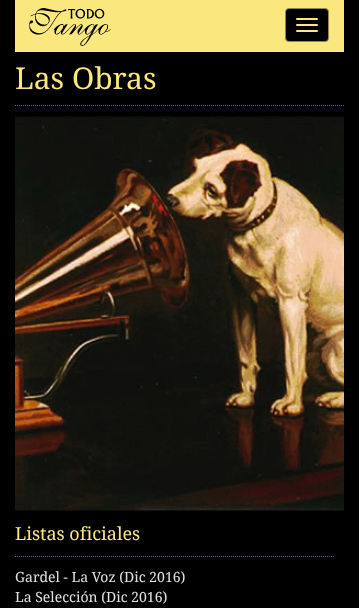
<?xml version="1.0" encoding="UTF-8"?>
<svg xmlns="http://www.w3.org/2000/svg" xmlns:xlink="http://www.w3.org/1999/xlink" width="359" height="608">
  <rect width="100%" height="100%" fill="#000000" />
  <rect x="15" width="329" height="52" fill="#fae77e" />
  <image x="29" y="8" width="82" height="38" xlink:href="image1.png" />
  <rect x="285.5" y="8.5" width="43" height="33" rx="3.5" fill="#000000" stroke="#968452" />
  <rect x="296" y="18" width="22" height="2" rx="1" fill="#fae77e" />
  <rect x="296" y="24" width="22" height="2" rx="1" fill="#fae77e" />
  <rect x="296" y="30" width="22" height="2" rx="1" fill="#fae77e" />
  <path d="M 15 105.5 h 329" fill="none" stroke="#bd5208" stroke-dasharray="1 1" />
  <image x="15" y="116" width="329" height="395" xlink:href="image2.png" />
  <path d="M 15 556.5 h 319" fill="none" stroke="#bd5208" stroke-dasharray="1 1" />
  <text x="15" y="89" style="font-family: Droid Serif; font-size: 30px; fill: #fae77e">Las Obras</text>
  <text x="15" y="540" style="font-family: Droid Serif; font-size: 18px; fill: #fae77e">Listas oficiales</text>
  <text x="15" y="582" style="font-family: Droid Serif; font-size: 14px; fill: #e1e1e1">Gardel - La Voz (Dic 2016)</text>
  <text x="15" y="602" style="font-family: Droid Serif; font-size: 14px; fill: #e1e1e1">La Selección (Dic 2016)</text>
</svg>
